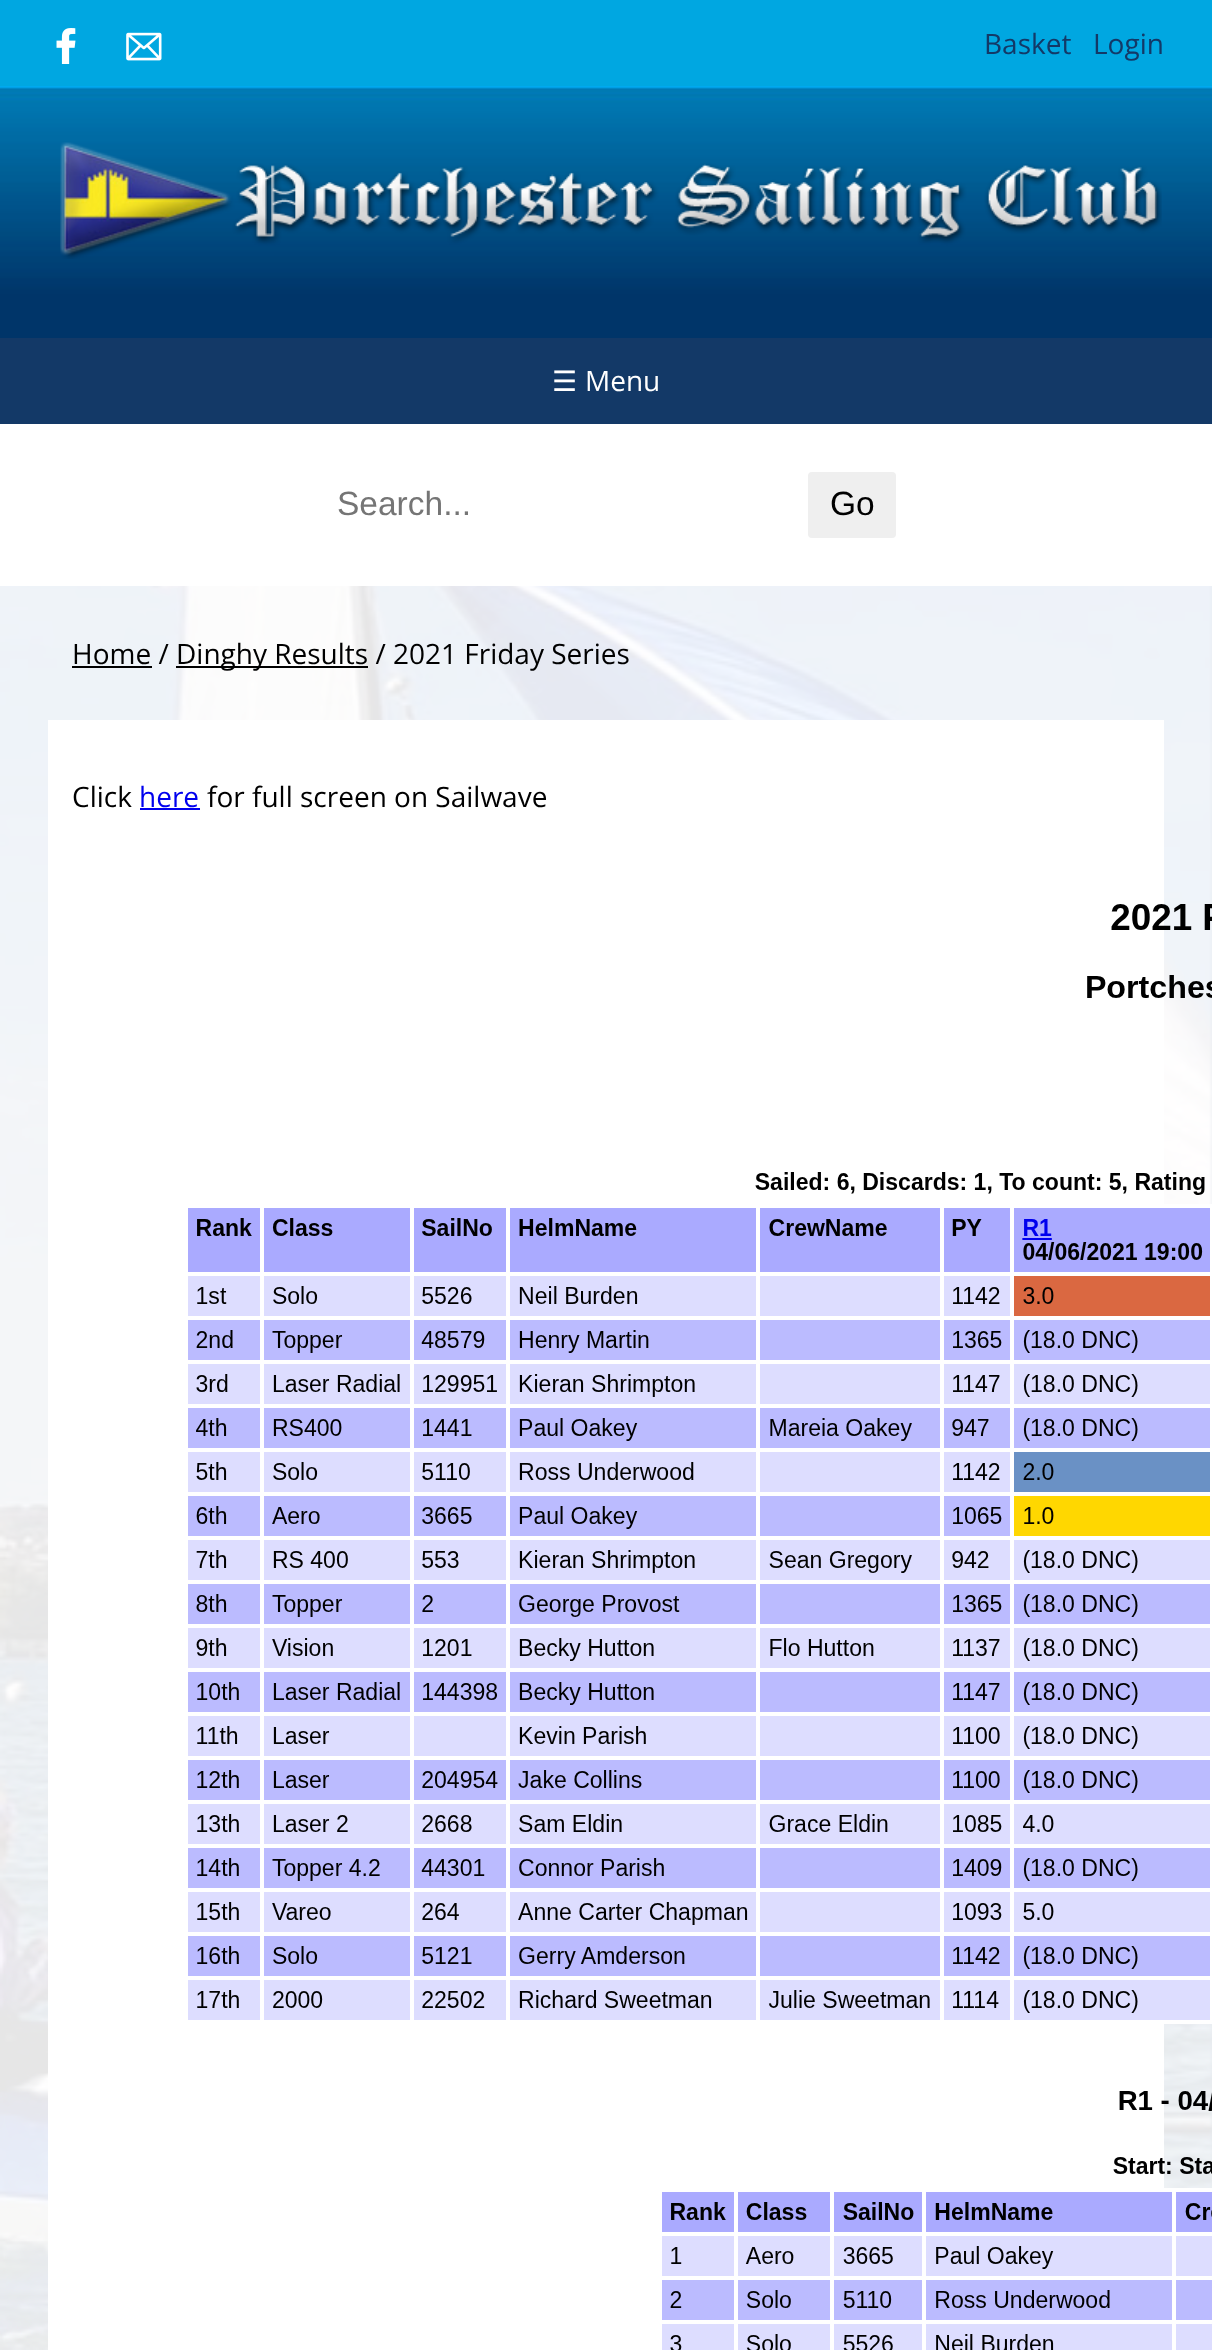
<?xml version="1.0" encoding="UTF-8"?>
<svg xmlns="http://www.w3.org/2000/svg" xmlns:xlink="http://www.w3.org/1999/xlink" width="1212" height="2350">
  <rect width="100%" height="100%" fill="#133967" />
  <image x="0" y="586" width="1212" height="1764" xlink:href="image1.png" />
  <rect width="1212" height="86" fill="#00a7e1" />
  <image x="56" y="28" width="20" height="36" xlink:href="image2.png" />
  <image x="126" y="32" width="36" height="29" xlink:href="image3.png" />
  <image x="0" y="86" width="1212" height="252" xlink:href="image4.png" />
  <image x="60" y="142" width="1102" height="117" xlink:href="image5.png" />
  <rect y="424" width="1212" height="162" fill="#ffffff" />
  <rect x="808" y="472" width="88" height="66" rx="4" fill="#efefef" />
  <rect y="586" width="1212" height="1764" fill="#ffffff" fill-opacity="0.9" />
  <rect x="72" y="666" width="80" height="2" fill="#000000" />
  <rect x="176" y="666" width="192" height="2" fill="#000000" />
  <rect x="48" y="720" width="1116" height="1630" fill="#ffffff" />
  <rect x="140" y="808" width="60" height="2" fill="#0000ee" />
  <image x="188" y="904" width="1024" height="1446" xlink:href="image6.png" />
  <text x="984" y="54" style="font-family: Open Sans; font-size: 28px; fill: #133967">Basket</text>
  <text x="1093" y="54" style="font-family: Open Sans; font-size: 28px; fill: #133967">Login</text>
  <text x="552" y="391" style="font-family: DejaVu Sans; font-size: 28px; fill: #ffffff">☰</text>
  <text x="585" y="391" style="font-family: Open Sans; font-size: 28px; fill: #ffffff">Menu</text>
  <text x="337" y="515" style="font-family: Liberation Sans; font-size: 33.5px; fill: #757575">Search...</text>
  <text x="830" y="515" style="font-family: Liberation Sans; font-size: 33.5px; fill: #000000">Go</text>
  <text x="72" y="664" style="font-family: Open Sans; font-size: 28px; fill: #000000">Home /</text>
  <text x="176" y="664" style="font-family: Open Sans; font-size: 28px; fill: #000000">Dinghy Results / 2021 Friday Series</text>
  <text x="72" y="807" style="font-family: Open Sans; font-size: 28px; fill: #000000">Click</text>
  <text x="139" y="807" style="font-family: Open Sans; font-size: 28px; fill: #0000ee">here</text>
  <text x="207" y="807" style="font-family: Open Sans; font-size: 28px; fill: #000000">for full screen on Sailwave</text>
</svg>
